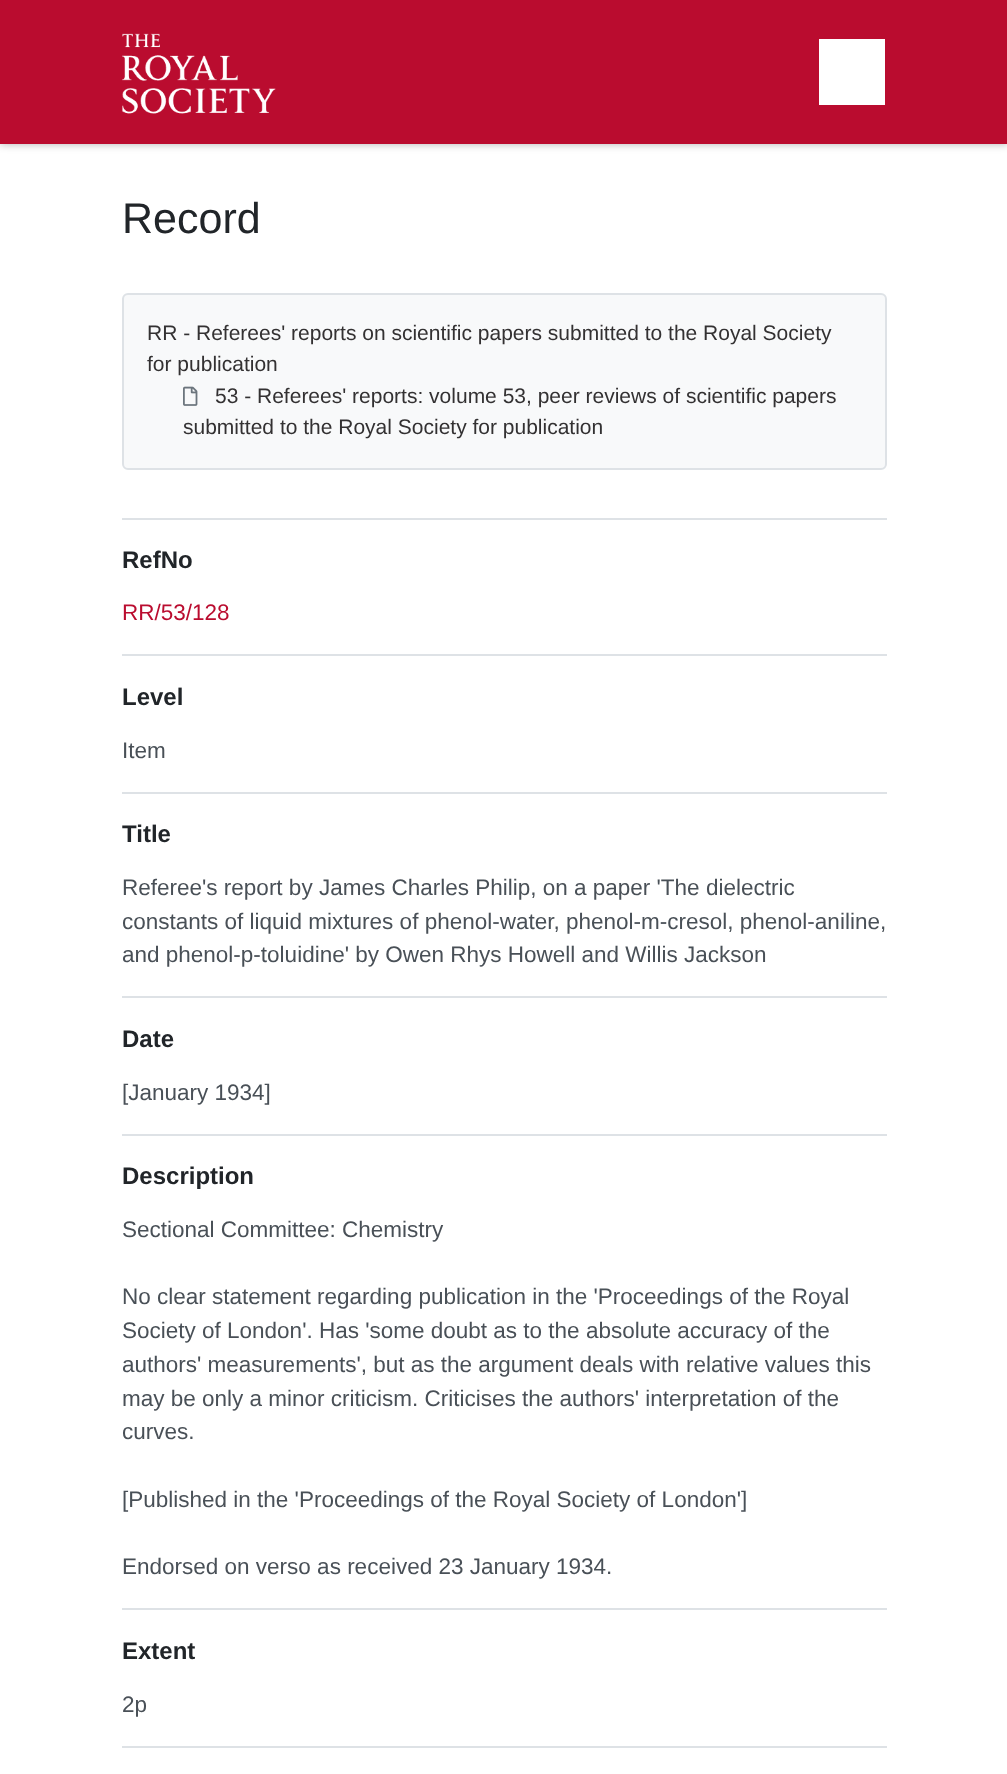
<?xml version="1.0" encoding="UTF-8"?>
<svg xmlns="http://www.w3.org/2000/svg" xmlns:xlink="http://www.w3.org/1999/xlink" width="1007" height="1774">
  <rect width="100%" height="100%" fill="#ffffff" />
  <rect width="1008" height="144" fill="#000000" fill-opacity="0.3" filter="blur(4.5px)" />
  <rect width="1007" height="144" fill="#ba0c2f" />
  <image x="122" y="33" width="154" height="81" xlink:href="image1.png" />
  <rect x="819" y="39" width="66" height="66" fill="#ffffff" />
  <rect x="123" y="294" width="763" height="175" rx="5" fill="#f8f9fa" stroke="#dee2e6" stroke-width="2" />
  <image x="183" y="386" width="15" height="20" xlink:href="image2.png" />
  <rect x="122" y="518" width="765" height="2" fill="#dee2e6" />
  <rect x="122" y="654" width="765" height="2" fill="#dee2e6" />
  <rect x="122" y="792" width="765" height="2" fill="#dee2e6" />
  <rect x="122" y="996" width="765" height="2" fill="#dee2e6" />
  <rect x="122" y="1134" width="765" height="2" fill="#dee2e6" />
  <rect x="122" y="1608" width="765" height="2" fill="#dee2e6" />
  <rect x="122" y="1746" width="765" height="2" fill="#dee2e6" />
  <text x="122" y="233" style="font-family: Liberation Sans; font-size: 43px; fill: #212529">Record</text>
  <text x="147" y="340" style="font-family: Liberation Sans; font-size: 21px; fill: #333132">RR - Referees' reports on scientific papers submitted to the Royal Society</text>
  <text x="147" y="371" style="font-family: Liberation Sans; font-size: 21px; fill: #333132">for publication</text>
  <text x="215" y="403" style="font-family: Liberation Sans; font-size: 21px; fill: #333132">53 - Referees' reports: volume 53, peer reviews of scientific papers</text>
  <text x="183" y="434" style="font-family: Liberation Sans; font-size: 21px; fill: #333132">submitted to the Royal Society for publication</text>
  <text x="122" y="568" style="font-family: Liberation Sans; font-size: 24px; font-weight: bold; fill: #212529">RefNo</text>
  <text x="122" y="620" style="font-family: Liberation Sans; font-size: 22.5px; fill: #ba0c2f">RR/53/128</text>
  <text x="122" y="705" style="font-family: Liberation Sans; font-size: 24px; font-weight: bold; fill: #212529">Level</text>
  <text x="122" y="758" style="font-family: Liberation Sans; font-size: 22.5px; fill: #495057">Item</text>
  <text x="122" y="842" style="font-family: Liberation Sans; font-size: 24px; font-weight: bold; fill: #212529">Title</text>
  <text x="122" y="895" style="font-family: Liberation Sans; font-size: 22.5px; fill: #495057">Referee's report by James Charles Philip, on a paper 'The dielectric</text>
  <text x="122" y="929" style="font-family: Liberation Sans; font-size: 22.5px; fill: #495057">constants of liquid mixtures of phenol-water, phenol-m-cresol, phenol-aniline,</text>
  <text x="122" y="962" style="font-family: Liberation Sans; font-size: 22.5px; fill: #495057">and phenol-p-toluidine' by Owen Rhys Howell and Willis Jackson</text>
  <text x="122" y="1047" style="font-family: Liberation Sans; font-size: 24px; font-weight: bold; fill: #212529">Date</text>
  <text x="122" y="1100" style="font-family: Liberation Sans; font-size: 22.5px; fill: #495057">[January 1934]</text>
  <text x="122" y="1184" style="font-family: Liberation Sans; font-size: 24px; font-weight: bold; fill: #212529">Description</text>
  <text x="122" y="1237" style="font-family: Liberation Sans; font-size: 22.5px; fill: #495057">Sectional Committee: Chemistry</text>
  <text x="122" y="1304" style="font-family: Liberation Sans; font-size: 22.5px; fill: #495057">No clear statement regarding publication in the 'Proceedings of the Royal</text>
  <text x="122" y="1338" style="font-family: Liberation Sans; font-size: 22.5px; fill: #495057">Society of London'. Has 'some doubt as to the absolute accuracy of the</text>
  <text x="122" y="1372" style="font-family: Liberation Sans; font-size: 22.5px; fill: #495057">authors' measurements', but as the argument deals with relative values this</text>
  <text x="122" y="1406" style="font-family: Liberation Sans; font-size: 22.5px; fill: #495057">may be only a minor criticism. Criticises the authors' interpretation of the</text>
  <text x="122" y="1439" style="font-family: Liberation Sans; font-size: 22.5px; fill: #495057">curves.</text>
  <text x="122" y="1507" style="font-family: Liberation Sans; font-size: 22.5px; fill: #495057">[Published in the 'Proceedings of the Royal Society of London']</text>
  <text x="122" y="1574" style="font-family: Liberation Sans; font-size: 22.5px; fill: #495057">Endorsed on verso as received 23 January 1934.</text>
  <text x="122" y="1659" style="font-family: Liberation Sans; font-size: 24px; font-weight: bold; fill: #212529">Extent</text>
  <text x="122" y="1712" style="font-family: Liberation Sans; font-size: 22.5px; fill: #495057">2p</text>
</svg>
